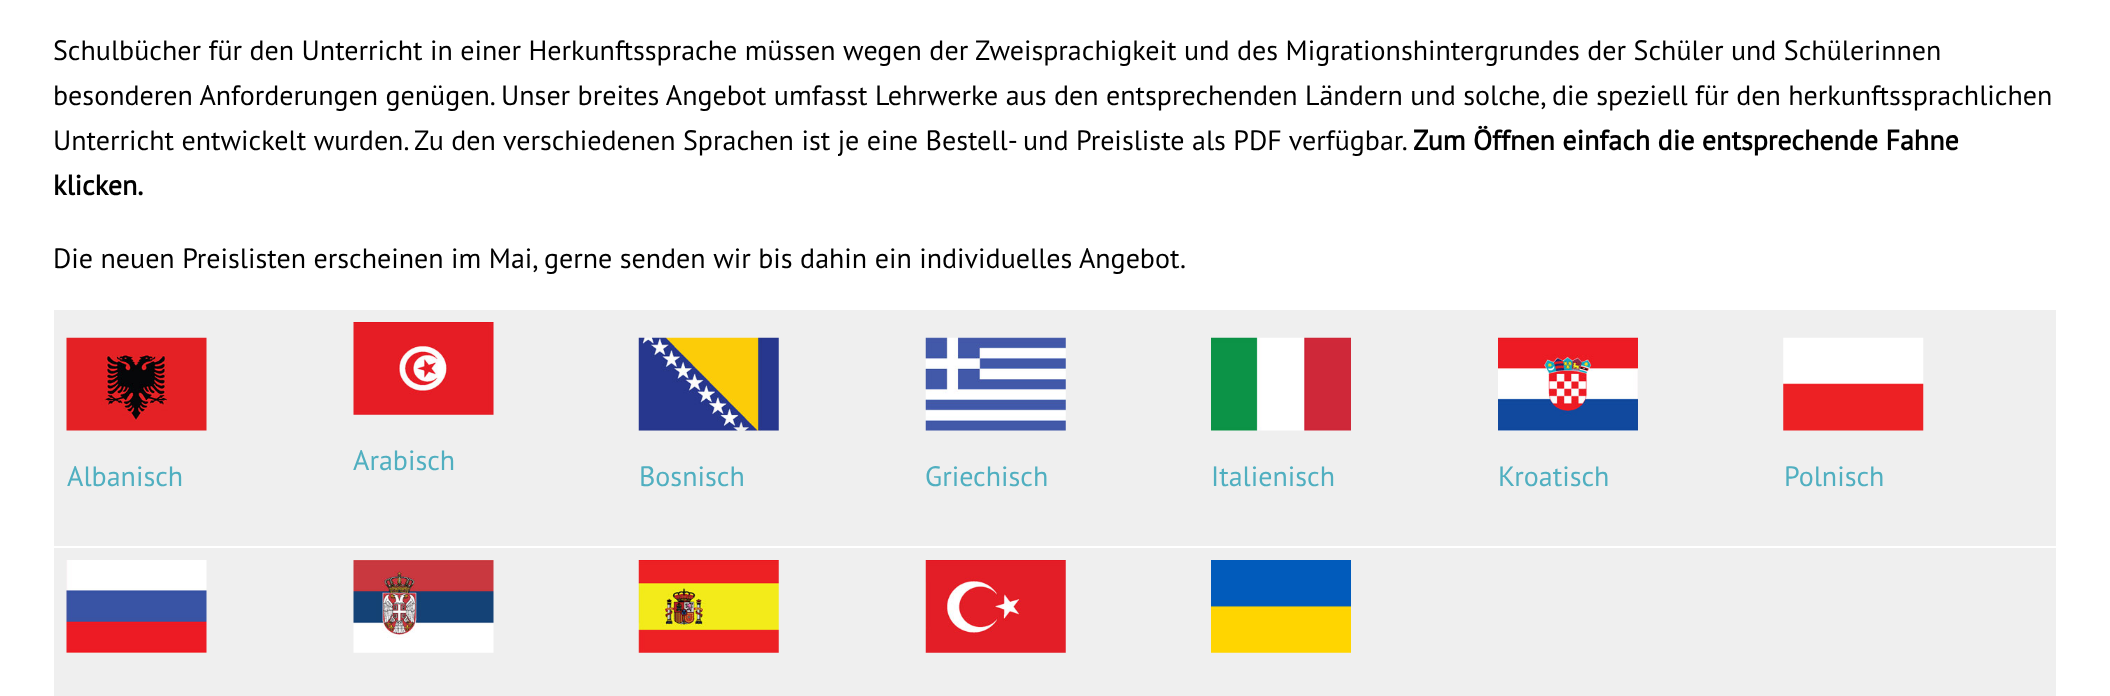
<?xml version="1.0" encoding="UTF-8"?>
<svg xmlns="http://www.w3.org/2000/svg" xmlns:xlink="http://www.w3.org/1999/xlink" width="2110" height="696">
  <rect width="100%" height="100%" fill="#ffffff" />
  <rect x="54" y="310" width="2002" height="236" fill="#efefef" />
  <image x="353" y="322" width="141" height="93" xlink:href="image1.png" />
  <image x="66" y="337" width="141" height="94" xlink:href="image2.png" />
  <image x="638" y="337" width="141" height="94" xlink:href="image3.png" />
  <image x="925" y="337" width="141" height="94" xlink:href="image4.png" />
  <image x="1211" y="337" width="140" height="94" xlink:href="image5.png" />
  <image x="1498" y="337" width="140" height="94" xlink:href="image6.png" />
  <image x="1783" y="337" width="141" height="94" xlink:href="image7.png" />
  <rect x="54" y="548" width="2002" height="148" fill="#efefef" />
  <image x="66" y="560" width="141" height="93" xlink:href="image8.png" />
  <image x="353" y="560" width="141" height="93" xlink:href="image9.png" />
  <image x="638" y="560" width="141" height="93" xlink:href="image10.png" />
  <image x="925" y="560" width="141" height="93" xlink:href="image11.png" />
  <image x="1211" y="560" width="140" height="93" xlink:href="image12.png" />
  <text x="53" y="60" style="font-family: PT Sans; font-size: 28px; fill: #000000">Schulbücher für den Unterricht in einer Herkunftssprache müssen wegen der Zweisprachigkeit und des Migrationshintergrundes der Schüler und Schülerinnen</text>
  <text x="53" y="105" style="font-family: PT Sans; font-size: 28px; fill: #000000">besonderen Anforderungen genügen. Unser breites Angebot umfasst Lehrwerke aus den entsprechenden Ländern und solche, die speziell für den herkunftssprachlichen</text>
  <text x="53" y="150" style="font-family: PT Sans; font-size: 28px; fill: #000000">Unterricht entwickelt wurden. Zu den verschiedenen Sprachen ist je eine Bestell- und Preisliste als PDF verfügbar.</text>
  <text x="1413" y="150" style="font-family: PT Sans; font-size: 28px; font-weight: bold; fill: #000000">Zum Öffnen einfach die entsprechende Fahne</text>
  <text x="53" y="195" style="font-family: PT Sans; font-size: 28px; font-weight: bold; fill: #000000">klicken.</text>
  <text x="53" y="268" style="font-family: PT Sans; font-size: 28px; fill: #000000">Die neuen Preislisten erscheinen im Mai, gerne senden wir bis dahin ein individuelles Angebot.</text>
  <text x="353" y="470" style="font-family: PT Sans; font-size: 28px; fill: #50afc0">Arabisch</text>
  <text x="67" y="486" style="font-family: PT Sans; font-size: 28px; fill: #50afc0">Albanisch</text>
  <text x="639" y="486" style="font-family: PT Sans; font-size: 28px; fill: #50afc0">Bosnisch</text>
  <text x="925" y="486" style="font-family: PT Sans; font-size: 28px; fill: #50afc0">Griechisch</text>
  <text x="1211" y="486" style="font-family: PT Sans; font-size: 28px; fill: #50afc0">Italienisch</text>
  <text x="1498" y="486" style="font-family: PT Sans; font-size: 28px; fill: #50afc0">Kroatisch</text>
  <text x="1784" y="486" style="font-family: PT Sans; font-size: 28px; fill: #50afc0">Polnisch</text>
</svg>
